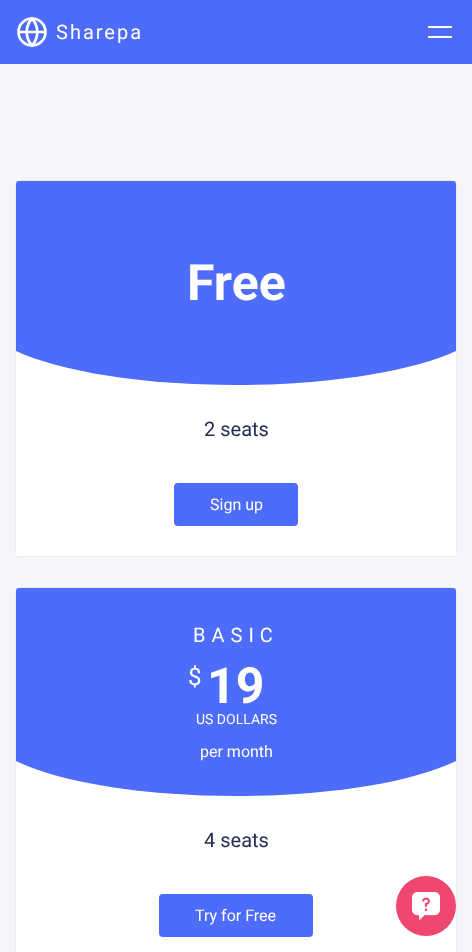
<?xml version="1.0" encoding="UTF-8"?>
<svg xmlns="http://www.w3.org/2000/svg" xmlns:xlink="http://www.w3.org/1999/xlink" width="472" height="952">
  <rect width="100%" height="100%" fill="#f5f6fa" />
  <rect width="472" height="64" fill="#4d6cfa" />
  <circle cx="32" cy="32" r="13.5" fill="none" stroke="#ffffff" stroke-width="2.7" />
  <path d="M 18.5 32 h 27 m -13.5 -13.5 c 7 7.5 7 19.5 0 27 c -7 -7.5 -7 -19.5 0 -27 z" fill="none" stroke="#ffffff" stroke-width="2.7" />
  <rect x="428" y="26" width="24" height="2" fill="#ffffff" />
  <rect x="428" y="36" width="24" height="2" fill="#ffffff" />
  <rect x="15.5" y="180.5" width="441" height="376" rx="3.5" fill="#ffffff" stroke="#ededed" />
  <path d="M 19 181 h 434 c 2 0 3 1 3 3 v 167 c -43 20 -126 34 -220 34 c -94 0 -177 -14 -220 -34 v -167 c 0 -2 1 -3 3 -3 z" fill="#4d6cfa" />
  <rect x="174" y="483" width="124" height="43" rx="4" fill="#4d6cfa" />
  <rect x="15.5" y="587.5" width="441" height="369" rx="3.5" fill="#ffffff" stroke="#ededed" />
  <path d="M 19 588 h 434 c 2 0 3 1 3 3 v 170 c -43 21 -126 35 -220 35 c -94 0 -177 -14 -220 -35 v -170 c 0 -2 1 -3 3 -3 z" fill="#4d6cfa" />
  <rect x="159" y="894" width="154" height="43" rx="4" fill="#4d6cfa" />
  <circle cx="426" cy="906" r="30" fill="#ef476f" />
  <image x="412" y="892" width="28" height="28" xlink:href="image1.png" />
  <text x="56" y="39" style="font-family: Roboto; font-size: 20px; letter-spacing: 2px; fill: #ffffff">Sharepa</text>
  <text x="187" y="300" style="font-family: Roboto; font-size: 50px; font-weight: bold; fill: #ffffff">Free</text>
  <text x="204" y="436" style="font-family: Roboto; font-size: 20px; fill: #252d56">2 seats</text>
  <text x="210" y="510" style="font-family: Roboto; font-size: 16px; fill: #ffffff">Sign up</text>
  <text x="193" y="642" style="font-family: Roboto; font-size: 20px; letter-spacing: 6px; fill: #ffffff">BASIC</text>
  <text x="188" y="685" style="font-family: Roboto; font-size: 24px; fill: #ffffff">$</text>
  <text x="207" y="703" style="font-family: Roboto; font-size: 50px; font-weight: bold; fill: #ffffff">19</text>
  <text x="196" y="724" style="font-family: Roboto; font-size: 14px; fill: #ffffff">US DOLLARS</text>
  <text x="200" y="757" style="font-family: Roboto; font-size: 16px; fill: #ffffff">per month</text>
  <text x="204" y="847" style="font-family: Roboto; font-size: 20px; fill: #252d56">4 seats</text>
  <text x="195" y="921" style="font-family: Roboto; font-size: 16px; fill: #ffffff">Try for Free</text>
</svg>
